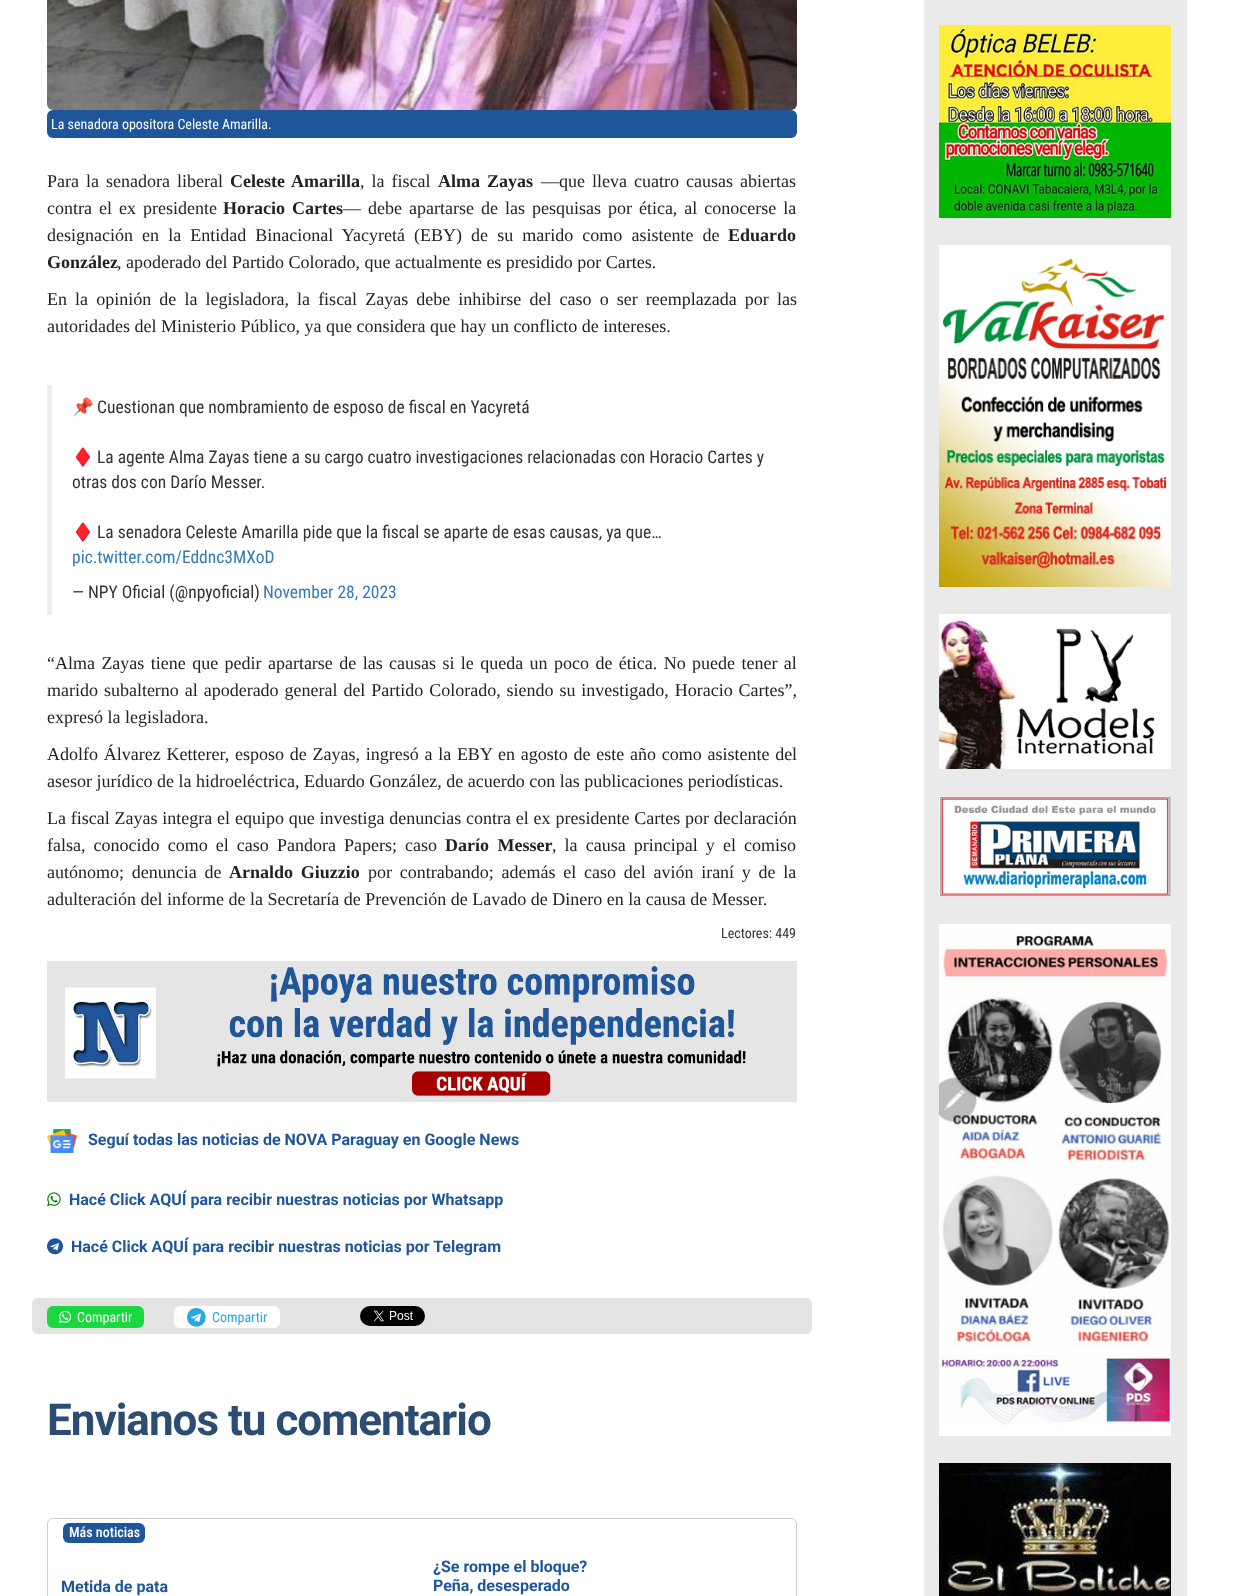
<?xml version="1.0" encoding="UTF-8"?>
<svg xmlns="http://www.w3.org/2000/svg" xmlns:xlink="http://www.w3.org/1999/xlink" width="1233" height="1596">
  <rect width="100%" height="100%" fill="#ffffff" />
  <image x="47" y="0" width="750" height="110" xlink:href="image1.png" />
  <rect x="47" y="110" width="750" height="28" rx="6" fill="#1f5599" />
  <rect x="47" y="385" width="5" height="230" fill="#eeeeee" />
  <image x="47" y="961" width="750" height="141" xlink:href="image2.png" />
  <image x="47" y="1129" width="30" height="24" xlink:href="image3.png" />
  <image x="47" y="1192" width="14" height="15" xlink:href="image4.png" />
  <image x="47" y="1238" width="16" height="17" xlink:href="image5.png" />
  <rect x="32" y="1298" width="780" height="36" rx="6" fill="#e3e3e3" />
  <rect x="47" y="1306" width="97" height="22" rx="6" fill="#1bd741" />
  <image x="59" y="1311" width="12" height="12" xlink:href="image6.png" />
  <rect x="174" y="1306" width="106" height="22" rx="6" fill="#ffffff" />
  <image x="187" y="1308" width="19" height="19" xlink:href="image7.png" />
  <image x="360" y="1306" width="65" height="20" xlink:href="image8.png" />
  <rect x="47.5" y="1518.5" width="749" height="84" rx="5.5" fill="none" stroke="#cccccc" />
  <rect x="63" y="1523" width="82" height="20" rx="6" fill="#1f5599" />
  <rect x="924" width="263" height="1596" fill="#eaeaea" />
  <image x="939" y="25" width="232" height="193" xlink:href="image9.png" />
  <image x="939" y="245" width="232" height="342" xlink:href="image10.png" />
  <image x="939" y="614" width="232" height="155" xlink:href="image11.png" />
  <image x="939" y="796" width="232" height="101" xlink:href="image12.png" />
  <image x="939" y="924" width="232" height="512" xlink:href="image13.png" />
  <image x="939" y="1463" width="232" height="133" xlink:href="image14.png" />
  <text x="51" y="129" style="font-family: Roboto Condensed; font-size: 14px; fill: #ffffff">La senadora opositora Celeste Amarilla.</text>
  <text x="47" y="187" word-spacing="2.5" style="font-family: Liberation Serif; font-size: 18px; fill: #222222">Para la senadora liberal</text>
  <text x="230" y="187" word-spacing="2.5" style="font-family: Liberation Serif; font-size: 18px; font-weight: bold; fill: #222222">Celeste Amarilla</text>
  <text x="360" y="187" word-spacing="2.5" style="font-family: Liberation Serif; font-size: 18px; fill: #222222">, la fiscal</text>
  <text x="438" y="187" word-spacing="2.5" style="font-family: Liberation Serif; font-size: 18px; font-weight: bold; fill: #222222">Alma Zayas</text>
  <text x="541" y="187" word-spacing="2.5" style="font-family: Liberation Serif; font-size: 18px; fill: #222222">—que lleva cuatro causas abiertas</text>
  <text x="47" y="214" word-spacing="2.5" style="font-family: Liberation Serif; font-size: 18px; fill: #222222">contra el ex presidente</text>
  <text x="223" y="214" word-spacing="2.5" style="font-family: Liberation Serif; font-size: 18px; font-weight: bold; fill: #222222">Horacio Cartes</text>
  <text x="343" y="214" word-spacing="2.5" style="font-family: Liberation Serif; font-size: 18px; fill: #222222">— debe apartarse de las pesquisas por ética, al conocerse la</text>
  <text x="47" y="241" word-spacing="4.6" style="font-family: Liberation Serif; font-size: 18px; fill: #222222">designación en la Entidad Binacional Yacyretá (EBY) de su marido como asistente de</text>
  <text x="728" y="241" style="font-family: Liberation Serif; font-size: 18px; font-weight: bold; fill: #222222">Eduardo</text>
  <text x="47" y="268" style="font-family: Liberation Serif; font-size: 18px; font-weight: bold; fill: #222222">González</text>
  <text x="117" y="268" style="font-family: Liberation Serif; font-size: 18px; fill: #222222">, apoderado del Partido Colorado, que actualmente es presidido por Cartes.</text>
  <text x="47" y="305" word-spacing="3.6" style="font-family: Liberation Serif; font-size: 18px; fill: #222222">En la opinión de la legisladora, la fiscal Zayas debe inhibirse del caso o ser reemplazada por las</text>
  <text x="47" y="332" style="font-family: Liberation Serif; font-size: 18px; fill: #222222">autoridades del Ministerio Público, ya que considera que hay un conflicto de intereses.</text>
  <text x="72" y="413" style="font-family: Noto Color Emoji; font-size: 17.5px; fill: #333333">📌</text>
  <text x="97" y="413" style="font-family: Roboto Condensed; font-size: 17.5px; fill: #333333">Cuestionan que nombramiento de esposo de fiscal en Yacyretá</text>
  <text x="72" y="463" style="font-family: Noto Color Emoji; font-size: 17.5px; fill: #333333">♦️</text>
  <text x="97" y="463" style="font-family: Roboto Condensed; font-size: 17.5px; fill: #333333">La agente Alma Zayas tiene a su cargo cuatro investigaciones relacionadas con Horacio Cartes y</text>
  <text x="72" y="488" style="font-family: Roboto Condensed; font-size: 17.5px; fill: #333333">otras dos con Darío Messer.</text>
  <text x="72" y="538" style="font-family: Noto Color Emoji; font-size: 17.5px; fill: #333333">♦️</text>
  <text x="97" y="538" style="font-family: Roboto Condensed; font-size: 17.5px; fill: #333333">La senadora Celeste Amarilla pide que la fiscal se aparte de esas causas, ya que…</text>
  <text x="72" y="563" style="font-family: Roboto Condensed; font-size: 17.5px; fill: #337ab7">pic.twitter.com/Eddnc3MXoD</text>
  <text x="72" y="598" style="font-family: Roboto Condensed; font-size: 17.5px; fill: #333333">— NPY Oficial (@npyoficial)</text>
  <text x="263" y="598" style="font-family: Roboto Condensed; font-size: 17.5px; fill: #337ab7">November 28, 2023</text>
  <text x="47" y="669" word-spacing="1.9" style="font-family: Liberation Serif; font-size: 18px; fill: #222222">“Alma Zayas tiene que pedir apartarse de las causas si le queda un poco de ética. No puede tener al</text>
  <text x="47" y="696" word-spacing="1.4" style="font-family: Liberation Serif; font-size: 18px; fill: #222222">marido subalterno al apoderado general del Partido Colorado, siendo su investigado, Horacio Cartes”,</text>
  <text x="47" y="723" style="font-family: Liberation Serif; font-size: 18px; fill: #222222">expresó la legisladora.</text>
  <text x="47" y="760" word-spacing="1.25" style="font-family: Liberation Serif; font-size: 18px; fill: #222222">Adolfo Álvarez Ketterer, esposo de Zayas, ingresó a la EBY en agosto de este año como asistente del</text>
  <text x="47" y="787" style="font-family: Liberation Serif; font-size: 18px; fill: #222222">asesor jurídico de la hidroeléctrica, Eduardo González, de acuerdo con las publicaciones periodísticas.</text>
  <text x="47" y="824" word-spacing="0.3" style="font-family: Liberation Serif; font-size: 18px; fill: #222222">La fiscal Zayas integra el equipo que investiga denuncias contra el ex presidente Cartes por declaración</text>
  <text x="47" y="851" word-spacing="3.6" style="font-family: Liberation Serif; font-size: 18px; fill: #222222">falsa, conocido como el caso Pandora Papers; caso</text>
  <text x="445" y="851" word-spacing="4" style="font-family: Liberation Serif; font-size: 18px; font-weight: bold; fill: #222222">Darío Messer</text>
  <text x="552" y="851" word-spacing="3.6" style="font-family: Liberation Serif; font-size: 18px; fill: #222222">, la causa principal y el comiso</text>
  <text x="47" y="878" word-spacing="3.25" style="font-family: Liberation Serif; font-size: 18px; fill: #222222">autónomo; denuncia de</text>
  <text x="229" y="878" word-spacing="3.25" style="font-family: Liberation Serif; font-size: 18px; font-weight: bold; fill: #222222">Arnaldo Giuzzio</text>
  <text x="368" y="878" word-spacing="3.25" style="font-family: Liberation Serif; font-size: 18px; fill: #222222">por contrabando; además el caso del avión iraní y de la</text>
  <text x="47" y="905" style="font-family: Liberation Serif; font-size: 18px; fill: #222222">adulteración del informe de la Secretaría de Prevención de Lavado de Dinero en la causa de Messer.</text>
  <text x="721" y="938" style="font-family: Roboto Condensed; font-size: 14px; fill: #333333">Lectores: 449</text>
  <text x="88" y="1145" style="font-family: Roboto; font-size: 16px; font-weight: bold; fill: #1f5599">Seguí todas las noticias de NOVA Paraguay en Google News</text>
  <text x="69" y="1205" style="font-family: Roboto; font-size: 16px; font-weight: bold; fill: #1f5599">Hacé Click AQUÍ para recibir nuestras noticias por Whatsapp</text>
  <text x="71" y="1252" style="font-family: Roboto; font-size: 16px; font-weight: bold; fill: #1f5599">Hacé Click AQUÍ para recibir nuestras noticias por Telegram</text>
  <text x="77" y="1322" style="font-family: Roboto Condensed; font-size: 14px; fill: #ffffff">Compartir</text>
  <text x="212" y="1322" style="font-family: Roboto Condensed; font-size: 14px; fill: #27a7e5">Compartir</text>
  <text x="47" y="1435" style="font-family: Roboto; font-size: 44px; font-weight: bold; letter-spacing: -1px; fill: #2d4c72">Envianos tu comentario</text>
  <text x="69" y="1537" style="font-family: Roboto Condensed; font-size: 14px; font-weight: 500; fill: #ffffff">Más noticias</text>
  <text x="61" y="1592" style="font-family: Roboto; font-size: 16px; font-weight: bold; fill: #1f5599">Metida de pata</text>
  <text x="433" y="1572" style="font-family: Roboto; font-size: 16px; font-weight: bold; fill: #1f5599">¿Se rompe el bloque?</text>
  <text x="433" y="1591" style="font-family: Roboto; font-size: 16px; font-weight: bold; fill: #1f5599">Peña, desesperado</text>
</svg>
